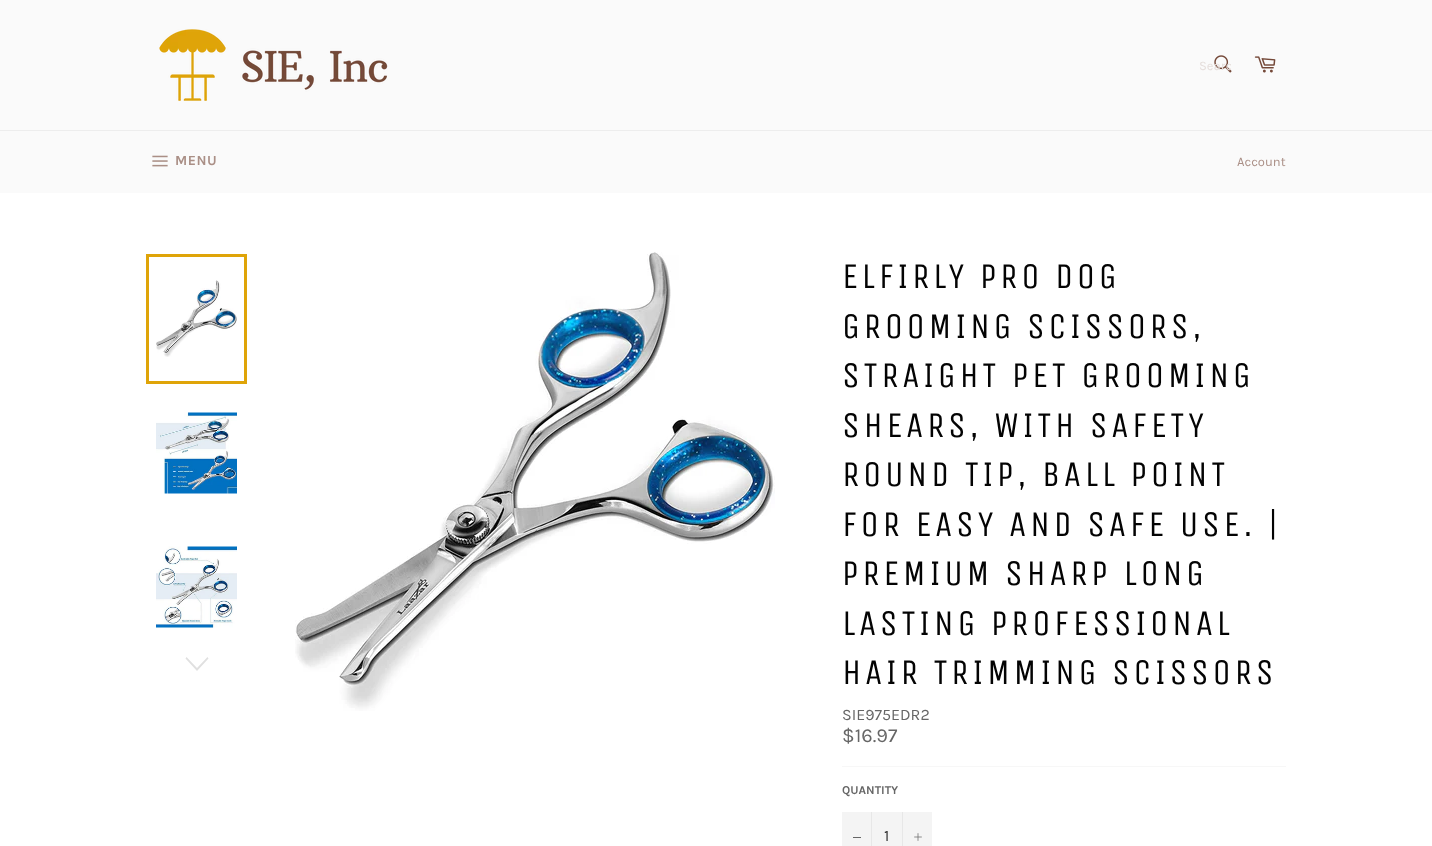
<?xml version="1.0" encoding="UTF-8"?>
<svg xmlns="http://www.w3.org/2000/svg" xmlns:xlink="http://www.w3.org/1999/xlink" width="1432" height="846">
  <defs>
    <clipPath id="clip1"><rect x="1199" y="58" width="32" height="15" /></clipPath>
  </defs>
  <rect width="100%" height="100%" fill="#fafafa" />
  <image x="159" y="29" width="229" height="72" xlink:href="image1.png" />
  <image x="1214" y="55" width="18" height="18" xlink:href="image2.png" />
  <image x="1254" y="56" width="22" height="17" xlink:href="image3.png" />
  <rect y="130" width="1432" height="1" fill="#ededed" />
  <image x="152" y="155" width="16" height="12" xlink:href="image4.png" />
  <rect y="193" width="1432" height="653" fill="#ffffff" />
  <image x="156" y="280" width="81" height="77" xlink:href="image5.png" />
  <rect x="147.5" y="255.5" width="98" height="127" fill="none" stroke="#dfa408" stroke-width="3" />
  <image x="156" y="412" width="81" height="82" xlink:href="image6.png" />
  <image x="156" y="546" width="81" height="82" xlink:href="image7.png" />
  <path d="M 207.5 657 l 1 1.5 l -11.5 12.5 l -11.5 -12.5 l 1 -1.5 l 10.5 11 z" fill="#e0e0e0" />
  <image x="295" y="252" width="480" height="459" xlink:href="image8.png" />
  <rect x="842" y="766" width="444" height="1" fill="#f7f7f7" />
  <rect x="842" y="812" width="90" height="34" fill="#f4f4f4" />
  <rect x="871" y="812" width="1" height="34" fill="#e7e7e7" />
  <rect x="853" y="837" width="8" height="1" fill="#666666" />
  <rect x="902" y="812" width="1" height="34" fill="#e7e7e7" />
  <image x="914" y="833" width="8" height="8" xlink:href="image9.png" />
  <g clip-path="url(#clip1)">
    <text x="1199" y="70" style="font-family: Karla; font-size: 13px; fill: #e5dedb">Searc</text>
  </g>
  <text x="175" y="165" style="font-family: Karla; font-size: 14px; font-weight: bold; letter-spacing: 0.5px; fill: #aa8f86">MENU</text>
  <text x="1237" y="166" style="font-family: Karla; font-size: 13px; fill: #aa8f86">Account</text>
  <text x="842" y="288" style="font-family: Unica One; font-size: 36px; letter-spacing: 3.6px; fill: #030303">ELFIRLY PRO DOG</text>
  <text x="842" y="338" style="font-family: Unica One; font-size: 36px; letter-spacing: 3.6px; fill: #030303">GROOMING SCISSORS,</text>
  <text x="842" y="387" style="font-family: Unica One; font-size: 36px; letter-spacing: 3.6px; fill: #030303">STRAIGHT PET GROOMING</text>
  <text x="842" y="437" style="font-family: Unica One; font-size: 36px; letter-spacing: 3.6px; fill: #030303">SHEARS, WITH SAFETY</text>
  <text x="842" y="486" style="font-family: Unica One; font-size: 36px; letter-spacing: 3.6px; fill: #030303">ROUND TIP, BALL POINT</text>
  <text x="842" y="536" style="font-family: Unica One; font-size: 36px; letter-spacing: 3.6px; fill: #030303">FOR EASY AND SAFE USE. |</text>
  <text x="842" y="585" style="font-family: Unica One; font-size: 36px; letter-spacing: 3.6px; fill: #030303">PREMIUM SHARP LONG</text>
  <text x="842" y="635" style="font-family: Unica One; font-size: 36px; letter-spacing: 3.6px; fill: #030303">LASTING PROFESSIONAL</text>
  <text x="842" y="684" style="font-family: Unica One; font-size: 36px; letter-spacing: 3.6px; fill: #030303">HAIR TRIMMING SCISSORS</text>
  <text x="842" y="720" style="font-family: Karla; font-size: 16px; fill: #666666">SIE975EDR2</text>
  <text x="842" y="742" style="font-family: Karla; font-size: 20px; fill: #666666">$16.97</text>
  <text x="842" y="794" style="font-family: Karla; font-size: 12px; font-weight: bold; fill: #666666">QUANTITY</text>
  <text x="884" y="841" style="font-family: Karla; font-size: 16px; fill: #333333">1</text>
</svg>
